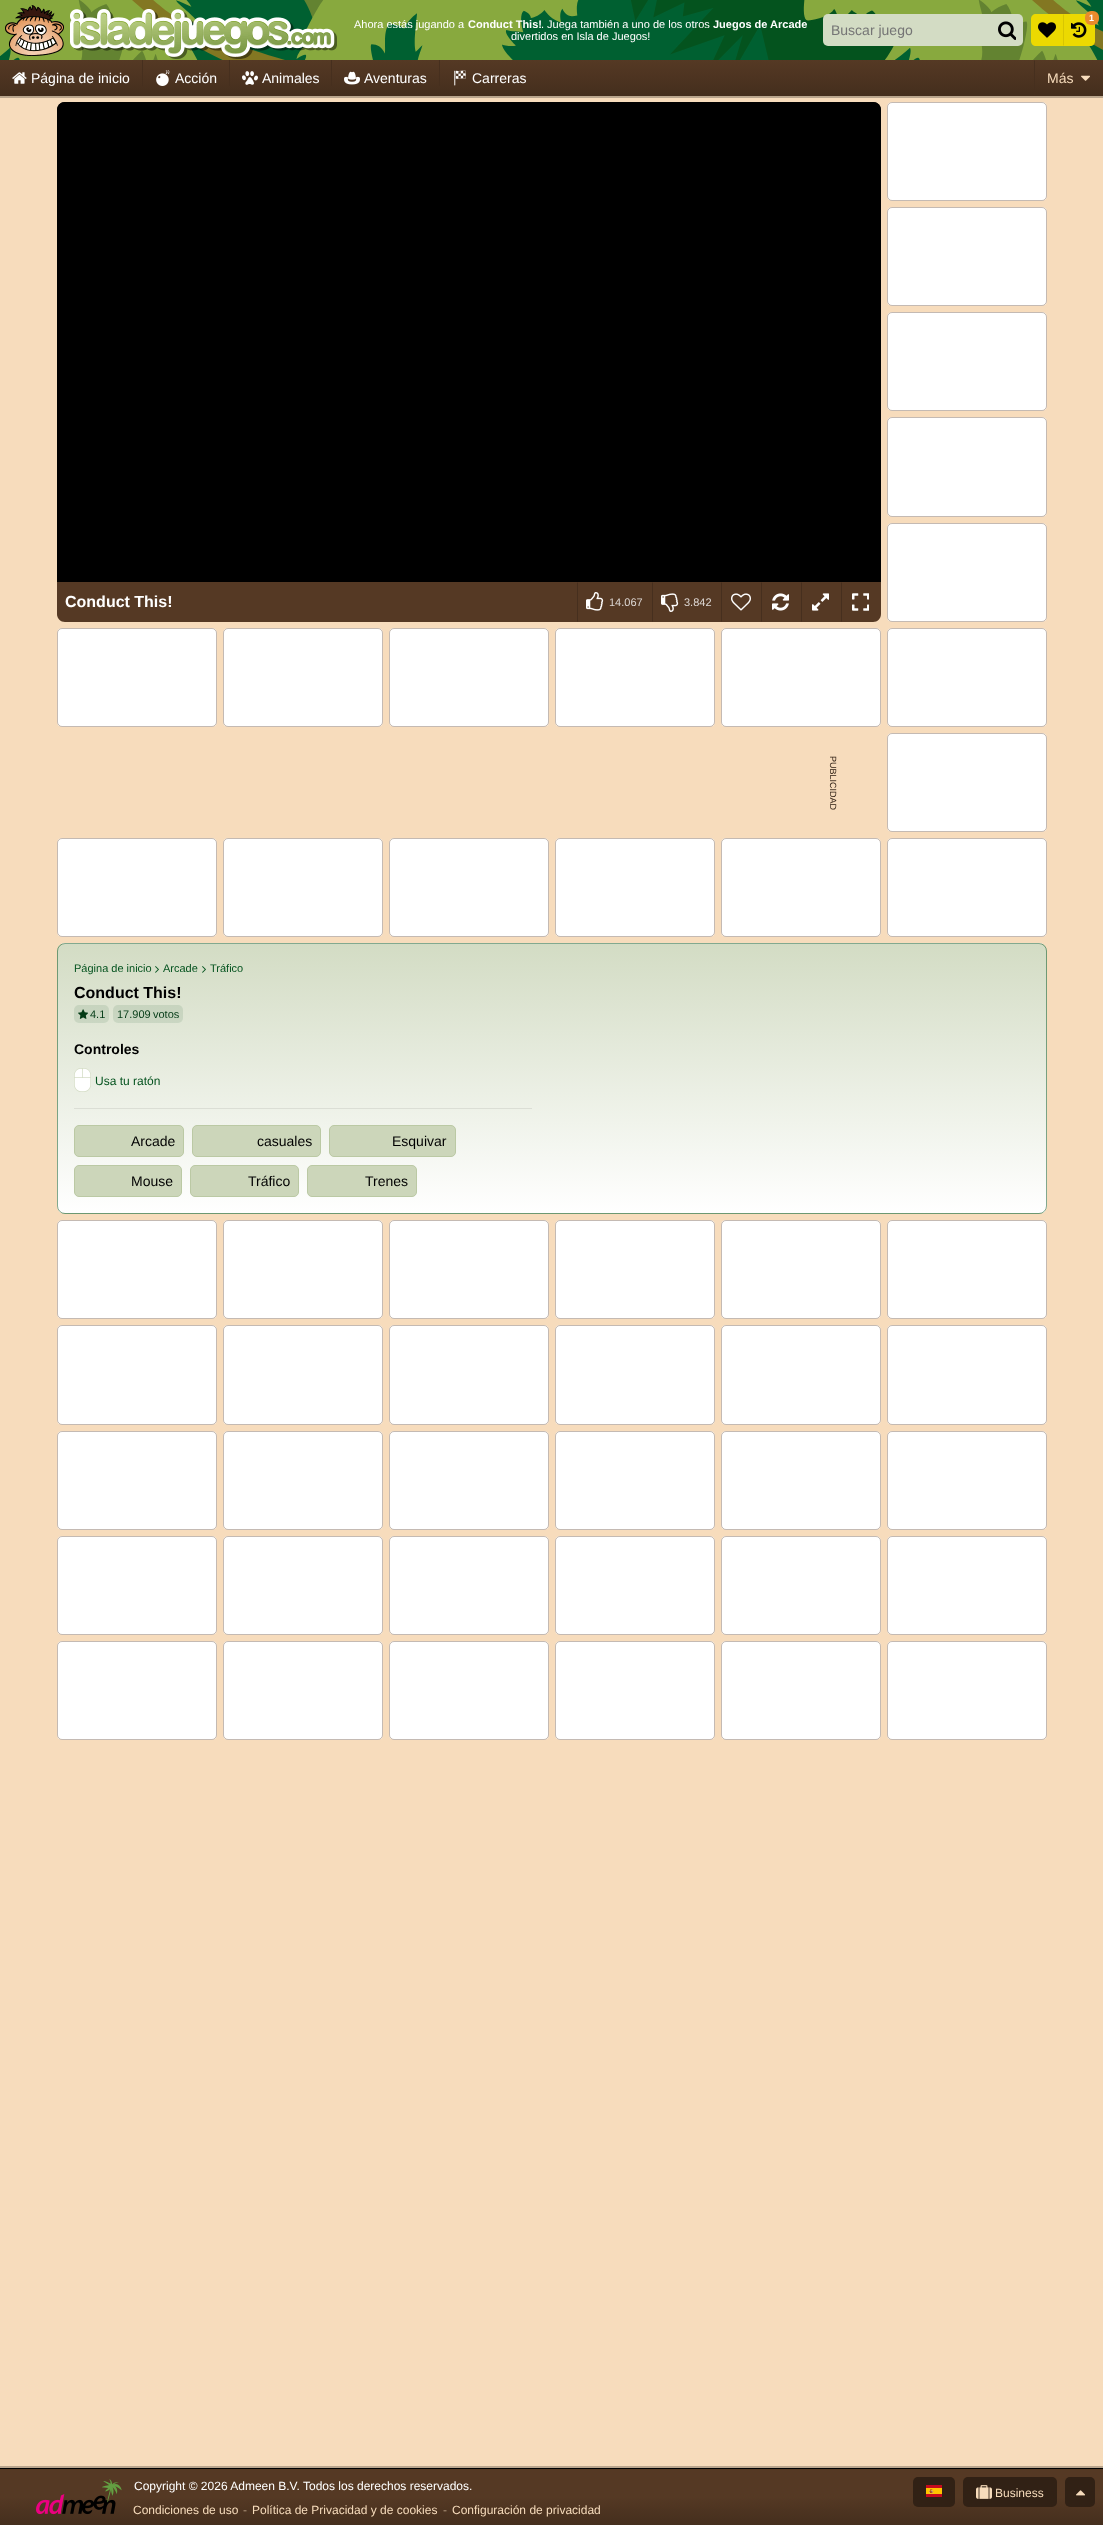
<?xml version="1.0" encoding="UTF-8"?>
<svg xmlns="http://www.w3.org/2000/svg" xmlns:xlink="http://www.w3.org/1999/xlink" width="1103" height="2525">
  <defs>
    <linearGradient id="g1" gradientUnits="userSpaceOnUse" x1="552" y1="60" x2="552" y2="96"><stop offset="0" stop-color="#553924" /><stop offset="1" stop-color="#442e1d" /></linearGradient>
    <clipPath id="clip1"><rect x="57" y="943" width="990" height="271" rx="8" /></clipPath>
    <linearGradient id="g2" gradientUnits="userSpaceOnUse" x1="552" y1="675" x2="552" y2="944"><stop offset="0" stop-color="#d3dcc4" /><stop offset="1" stop-color="#ffffff" /></linearGradient>
    <linearGradient id="g3" gradientUnits="userSpaceOnUse" x1="552" y1="944" x2="552" y2="1213"><stop offset="0" stop-color="#d3dcc4" /><stop offset="1" stop-color="#ffffff" /></linearGradient>
    <linearGradient id="g4" gradientUnits="userSpaceOnUse" x1="552" y1="1213" x2="552" y2="1482"><stop offset="0" stop-color="#d3dcc4" /><stop offset="1" stop-color="#ffffff" /></linearGradient>
    <linearGradient id="g5" gradientUnits="userSpaceOnUse" x1="552" y1="2469" x2="552" y2="2525"><stop offset="0.5" stop-color="#553924" /><stop offset="1" stop-color="#442e1d" /></linearGradient>
  </defs>
  <rect width="100%" height="100%" fill="#f7dcbc" />
  <rect x="-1" y="60" width="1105" height="38" fill="#000000" fill-opacity="0.25" filter="blur(0.5px)" />
  <rect x="78" width="980" height="60" fill="#638331" />
  <image x="0" y="0" width="1103" height="60" xlink:href="image1.png" />
  <image x="5" y="5" width="332" height="54" xlink:href="image2.png" />
  <path d="M 1036 14 h 27 v 32 h -27 c -3 0 -5 -2 -5 -5 v -22 c 0 -3 2 -5 5 -5 z" fill="#ecd901" />
  <image x="1038" y="22" width="18" height="16" xlink:href="image3.png" />
  <path d="M 1063 14 h 27 c 3 0 5 2 5 5 v 22 c 0 3 -2 5 -5 5 h -27 z" fill="#ecd901" />
  <path d="M 1063 14 v 32 l 1 -1 v -30 z" fill="#d8c601" />
  <image x="1071" y="22" width="16" height="16" xlink:href="image4.png" />
  <rect x="1085" y="11" width="14" height="14" rx="6" fill="#e98b2c" />
  <rect x="823" y="14" width="200" height="32" rx="5" fill="#d3dcc4" />
  <image x="998" y="21" width="18" height="19" xlink:href="image5.png" />
  <rect y="60" width="1103" height="36" fill="url(#g1)" />
  <image x="12" y="72" width="15" height="12" xlink:href="image6.png" />
  <rect x="142" y="60" width="1" height="26" fill="#462f1e" />
  <image x="156" y="70" width="14" height="16" xlink:href="image7.png" />
  <rect x="229" y="60" width="1" height="26" fill="#462f1e" />
  <image x="242" y="71" width="16" height="14" xlink:href="image8.png" />
  <rect x="331" y="60" width="1" height="26" fill="#462f1e" />
  <image x="344" y="71" width="16" height="14" xlink:href="image9.png" />
  <rect x="439" y="60" width="1" height="26" fill="#462f1e" />
  <image x="454" y="70" width="12" height="16" xlink:href="image10.png" />
  <path d="M 1034 96 v -36 l 1 1 v 34 z" fill="#462f1e" />
  <image x="1081" y="75" width="9" height="6" xlink:href="image11.png" />
  <rect x="887" y="102" width="160" height="99" rx="5" fill="#ffffff" />
  <rect x="887.5" y="102.5" width="159" height="98" rx="4.5" fill="none" stroke="#553924" stroke-opacity="0.35" />
  <rect x="887" y="207" width="160" height="99" rx="5" fill="#ffffff" />
  <rect x="887.5" y="207.5" width="159" height="98" rx="4.5" fill="none" stroke="#553924" stroke-opacity="0.35" />
  <rect x="887" y="312" width="160" height="99" rx="5" fill="#ffffff" />
  <rect x="887.5" y="312.5" width="159" height="98" rx="4.5" fill="none" stroke="#553924" stroke-opacity="0.35" />
  <rect x="887" y="417" width="160" height="100" rx="5" fill="#ffffff" />
  <rect x="887.5" y="417.5" width="159" height="99" rx="4.5" fill="none" stroke="#553924" stroke-opacity="0.35" />
  <path d="M 65 102 h 808 c 4.5 0 8 3.5 8 8 v 472 h -824 v -472 c 0 -4.5 3.5 -8 8 -8 z" fill="#000000" />
  <image x="57" y="102" width="824" height="8" xlink:href="image12.png" />
  <path d="M 57 582 h 824 v 32 c 0 4.5 -3.5 8 -8 8 h -808 c -4.5 0 -8 -3.5 -8 -8 z" fill="#553924" />
  <path d="M 577 622 v -40 l 1 1 v 38 z" fill="#462f1e" />
  <image x="586" y="592" width="18" height="19" xlink:href="image13.png" />
  <path d="M 652 622 v -40 l 1 1 v 38 z" fill="#462f1e" />
  <image x="661" y="593" width="18" height="19" xlink:href="image14.png" />
  <path d="M 721 622 v -40 l 1 1 v 38 z m 40 0 v -40 l 1 1 v 38 z" fill="#462f1e" />
  <image x="731" y="593" width="20" height="18" xlink:href="image15.png" />
  <image x="772" y="593" width="17" height="18" xlink:href="image16.png" />
  <path d="M 801 622 v -40 l 1 1 v 38 z m 40 -40 v 40 l 1 -1 v -38 z" fill="#462f1e" />
  <image x="812" y="593" width="17" height="18" xlink:href="image17.png" />
  <image x="852" y="593" width="17" height="18" xlink:href="image18.png" />
  <rect x="887" y="523" width="160" height="99" rx="5" fill="#ffffff" />
  <rect x="887.5" y="523.5" width="159" height="98" rx="4.5" fill="none" stroke="#553924" stroke-opacity="0.35" />
  <rect x="57" y="628" width="160" height="99" rx="5" fill="#ffffff" />
  <rect x="57.5" y="628.5" width="159" height="98" rx="4.5" fill="none" stroke="#553924" stroke-opacity="0.35" />
  <rect x="223" y="628" width="160" height="99" rx="5" fill="#ffffff" />
  <rect x="223.5" y="628.5" width="159" height="98" rx="4.5" fill="none" stroke="#553924" stroke-opacity="0.35" />
  <rect x="389" y="628" width="160" height="99" rx="5" fill="#ffffff" />
  <rect x="389.5" y="628.5" width="159" height="98" rx="4.5" fill="none" stroke="#553924" stroke-opacity="0.35" />
  <rect x="555" y="628" width="160" height="99" rx="5" fill="#ffffff" />
  <rect x="555.5" y="628.5" width="159" height="98" rx="4.5" fill="none" stroke="#553924" stroke-opacity="0.35" />
  <rect x="721" y="628" width="160" height="99" rx="5" fill="#ffffff" />
  <rect x="721.5" y="628.5" width="159" height="98" rx="4.5" fill="none" stroke="#553924" stroke-opacity="0.35" />
  <rect x="887" y="628" width="160" height="99" rx="5" fill="#ffffff" />
  <rect x="887.5" y="628.5" width="159" height="98" rx="4.5" fill="none" stroke="#553924" stroke-opacity="0.35" />
  <rect x="887" y="733" width="160" height="99" rx="5" fill="#ffffff" />
  <rect x="887.5" y="733.5" width="159" height="98" rx="4.5" fill="none" stroke="#553924" stroke-opacity="0.35" />
  <rect x="57" y="838" width="160" height="99" rx="5" fill="#ffffff" />
  <rect x="57.5" y="838.5" width="159" height="98" rx="4.5" fill="none" stroke="#553924" stroke-opacity="0.35" />
  <rect x="223" y="838" width="160" height="99" rx="5" fill="#ffffff" />
  <rect x="223.5" y="838.5" width="159" height="98" rx="4.5" fill="none" stroke="#553924" stroke-opacity="0.35" />
  <rect x="389" y="838" width="160" height="99" rx="5" fill="#ffffff" />
  <rect x="389.5" y="838.5" width="159" height="98" rx="4.5" fill="none" stroke="#553924" stroke-opacity="0.35" />
  <rect x="555" y="838" width="160" height="99" rx="5" fill="#ffffff" />
  <rect x="555.5" y="838.5" width="159" height="98" rx="4.5" fill="none" stroke="#553924" stroke-opacity="0.35" />
  <rect x="721" y="838" width="160" height="99" rx="5" fill="#ffffff" />
  <rect x="721.5" y="838.5" width="159" height="98" rx="4.5" fill="none" stroke="#553924" stroke-opacity="0.35" />
  <rect x="887" y="838" width="160" height="99" rx="5" fill="#ffffff" />
  <rect x="887.5" y="838.5" width="159" height="98" rx="4.5" fill="none" stroke="#553924" stroke-opacity="0.35" />
  <g clip-path="url(#clip1)">
    <rect x="57" y="943" width="990" height="1" fill="url(#g2)" />
    <rect x="57" y="944" width="990" height="269" fill="url(#g3)" />
    <rect x="57" y="1213" width="990" height="1" fill="url(#g4)" />
  </g>
  <rect x="57.5" y="943.5" width="989" height="270" rx="7.5" fill="none" stroke="#05531f" stroke-opacity="0.5" />
  <image x="155" y="966" width="4" height="7" xlink:href="image19.png" />
  <image x="202" y="966" width="4" height="7" xlink:href="image19.png" />
  <rect x="74" y="1005" width="35" height="18" rx="5" fill="#05531f" fill-opacity="0.1" />
  <image x="78" y="1009" width="10" height="10" xlink:href="image20.png" />
  <rect x="113" y="1005" width="70" height="18" rx="5" fill="#05531f" fill-opacity="0.1" />
  <image x="74" y="1068" width="17" height="24" xlink:href="image21.png" />
  <rect x="74" y="1108" width="458" height="1" fill="#dbded5" />
  <rect x="74.5" y="1125.5" width="109" height="31" rx="4.5" fill="#ccd6ba" stroke="#bbc9a4" />
  <rect x="192.5" y="1125.5" width="128" height="31" rx="4.5" fill="#ccd6ba" stroke="#bbc9a4" />
  <rect x="329.5" y="1125.5" width="126" height="31" rx="4.5" fill="#ccd6ba" stroke="#bbc9a4" />
  <rect x="74.5" y="1165.5" width="107" height="31" rx="4.5" fill="#ccd6ba" stroke="#bbc9a4" />
  <rect x="190.5" y="1165.5" width="108" height="31" rx="4.5" fill="#ccd6ba" stroke="#bbc9a4" />
  <rect x="307.5" y="1165.5" width="109" height="31" rx="4.5" fill="#ccd6ba" stroke="#bbc9a4" />
  <rect x="57" y="1220" width="160" height="99" rx="5" fill="#ffffff" />
  <rect x="57.5" y="1220.5" width="159" height="98" rx="4.5" fill="none" stroke="#553924" stroke-opacity="0.35" />
  <rect x="223" y="1220" width="160" height="99" rx="5" fill="#ffffff" />
  <rect x="223.5" y="1220.5" width="159" height="98" rx="4.5" fill="none" stroke="#553924" stroke-opacity="0.35" />
  <rect x="389" y="1220" width="160" height="99" rx="5" fill="#ffffff" />
  <rect x="389.5" y="1220.5" width="159" height="98" rx="4.5" fill="none" stroke="#553924" stroke-opacity="0.35" />
  <rect x="555" y="1220" width="160" height="99" rx="5" fill="#ffffff" />
  <rect x="555.5" y="1220.5" width="159" height="98" rx="4.5" fill="none" stroke="#553924" stroke-opacity="0.35" />
  <rect x="721" y="1220" width="160" height="99" rx="5" fill="#ffffff" />
  <rect x="721.5" y="1220.5" width="159" height="98" rx="4.5" fill="none" stroke="#553924" stroke-opacity="0.35" />
  <rect x="887" y="1220" width="160" height="99" rx="5" fill="#ffffff" />
  <rect x="887.5" y="1220.5" width="159" height="98" rx="4.5" fill="none" stroke="#553924" stroke-opacity="0.35" />
  <rect x="57" y="1325" width="160" height="100" rx="5" fill="#ffffff" />
  <rect x="57.5" y="1325.5" width="159" height="99" rx="4.5" fill="none" stroke="#553924" stroke-opacity="0.35" />
  <rect x="223" y="1325" width="160" height="100" rx="5" fill="#ffffff" />
  <rect x="223.5" y="1325.5" width="159" height="99" rx="4.5" fill="none" stroke="#553924" stroke-opacity="0.35" />
  <rect x="389" y="1325" width="160" height="100" rx="5" fill="#ffffff" />
  <rect x="389.5" y="1325.5" width="159" height="99" rx="4.5" fill="none" stroke="#553924" stroke-opacity="0.35" />
  <rect x="555" y="1325" width="160" height="100" rx="5" fill="#ffffff" />
  <rect x="555.5" y="1325.5" width="159" height="99" rx="4.5" fill="none" stroke="#553924" stroke-opacity="0.35" />
  <rect x="721" y="1325" width="160" height="100" rx="5" fill="#ffffff" />
  <rect x="721.5" y="1325.5" width="159" height="99" rx="4.5" fill="none" stroke="#553924" stroke-opacity="0.35" />
  <rect x="887" y="1325" width="160" height="100" rx="5" fill="#ffffff" />
  <rect x="887.5" y="1325.5" width="159" height="99" rx="4.5" fill="none" stroke="#553924" stroke-opacity="0.35" />
  <rect x="57" y="1431" width="160" height="99" rx="5" fill="#ffffff" />
  <rect x="57.5" y="1431.5" width="159" height="98" rx="4.5" fill="none" stroke="#553924" stroke-opacity="0.35" />
  <rect x="223" y="1431" width="160" height="99" rx="5" fill="#ffffff" />
  <rect x="223.5" y="1431.5" width="159" height="98" rx="4.5" fill="none" stroke="#553924" stroke-opacity="0.35" />
  <rect x="389" y="1431" width="160" height="99" rx="5" fill="#ffffff" />
  <rect x="389.5" y="1431.5" width="159" height="98" rx="4.5" fill="none" stroke="#553924" stroke-opacity="0.35" />
  <rect x="555" y="1431" width="160" height="99" rx="5" fill="#ffffff" />
  <rect x="555.5" y="1431.5" width="159" height="98" rx="4.5" fill="none" stroke="#553924" stroke-opacity="0.35" />
  <rect x="721" y="1431" width="160" height="99" rx="5" fill="#ffffff" />
  <rect x="721.5" y="1431.5" width="159" height="98" rx="4.5" fill="none" stroke="#553924" stroke-opacity="0.35" />
  <rect x="887" y="1431" width="160" height="99" rx="5" fill="#ffffff" />
  <rect x="887.5" y="1431.5" width="159" height="98" rx="4.5" fill="none" stroke="#553924" stroke-opacity="0.35" />
  <rect x="57" y="1536" width="160" height="99" rx="5" fill="#ffffff" />
  <rect x="57.5" y="1536.5" width="159" height="98" rx="4.5" fill="none" stroke="#553924" stroke-opacity="0.35" />
  <rect x="223" y="1536" width="160" height="99" rx="5" fill="#ffffff" />
  <rect x="223.5" y="1536.5" width="159" height="98" rx="4.5" fill="none" stroke="#553924" stroke-opacity="0.35" />
  <rect x="389" y="1536" width="160" height="99" rx="5" fill="#ffffff" />
  <rect x="389.5" y="1536.5" width="159" height="98" rx="4.5" fill="none" stroke="#553924" stroke-opacity="0.35" />
  <rect x="555" y="1536" width="160" height="99" rx="5" fill="#ffffff" />
  <rect x="555.5" y="1536.5" width="159" height="98" rx="4.5" fill="none" stroke="#553924" stroke-opacity="0.35" />
  <rect x="721" y="1536" width="160" height="99" rx="5" fill="#ffffff" />
  <rect x="721.5" y="1536.5" width="159" height="98" rx="4.5" fill="none" stroke="#553924" stroke-opacity="0.35" />
  <rect x="887" y="1536" width="160" height="99" rx="5" fill="#ffffff" />
  <rect x="887.5" y="1536.5" width="159" height="98" rx="4.5" fill="none" stroke="#553924" stroke-opacity="0.35" />
  <rect x="57" y="1641" width="160" height="99" rx="5" fill="#ffffff" />
  <rect x="57.5" y="1641.5" width="159" height="98" rx="4.5" fill="none" stroke="#553924" stroke-opacity="0.35" />
  <rect x="223" y="1641" width="160" height="99" rx="5" fill="#ffffff" />
  <rect x="223.5" y="1641.5" width="159" height="98" rx="4.5" fill="none" stroke="#553924" stroke-opacity="0.35" />
  <rect x="389" y="1641" width="160" height="99" rx="5" fill="#ffffff" />
  <rect x="389.5" y="1641.5" width="159" height="98" rx="4.5" fill="none" stroke="#553924" stroke-opacity="0.35" />
  <rect x="555" y="1641" width="160" height="99" rx="5" fill="#ffffff" />
  <rect x="555.5" y="1641.5" width="159" height="98" rx="4.5" fill="none" stroke="#553924" stroke-opacity="0.35" />
  <rect x="721" y="1641" width="160" height="99" rx="5" fill="#ffffff" />
  <rect x="721.5" y="1641.5" width="159" height="98" rx="4.5" fill="none" stroke="#553924" stroke-opacity="0.35" />
  <rect x="887" y="1641" width="160" height="99" rx="5" fill="#ffffff" />
  <rect x="887.5" y="1641.5" width="159" height="98" rx="4.5" fill="none" stroke="#553924" stroke-opacity="0.35" />
  <rect x="-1" y="2466" width="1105" height="59" fill="#000000" fill-opacity="0.25" filter="blur(0.5px)" />
  <rect y="2469" width="1103" height="56" fill="url(#g5)" />
  <rect y="2468" width="1103" height="1" fill="#000000" />
  <image x="36" y="2479" width="86" height="36" xlink:href="image22.png" />
  <rect x="913" y="2477" width="42" height="30" rx="5" fill="#312115" />
  <image x="926" y="2485" width="16" height="12" xlink:href="image23.png" />
  <rect x="963" y="2477" width="94" height="30" rx="5" fill="#312115" />
  <image x="976" y="2485" width="16" height="14" xlink:href="image24.png" />
  <rect x="1065" y="2477" width="30" height="30" rx="5" fill="#312115" />
  <image x="1076" y="2490" width="9" height="6" xlink:href="image25.png" />
  <text x="1089" y="21" style="font-family: Liberation Sans; font-size: 9px; font-weight: bold; fill: #ffffff">1</text>
  <text x="354" y="28" style="font-family: Liberation Sans; font-size: 11px; fill: #ffffff">Ahora estás jugando a</text>
  <text x="468" y="28" style="font-family: Liberation Sans; font-size: 11px; font-weight: bold; fill: #ffffff">Conduct This!</text>
  <text x="541" y="28" style="font-family: Liberation Sans; font-size: 11px; fill: #ffffff">. Juega también a uno de los otros</text>
  <text x="713" y="28" style="font-family: Liberation Sans; font-size: 11px; font-weight: bold; fill: #ffffff">Juegos de Arcade</text>
  <text x="511" y="40" style="font-family: Liberation Sans; font-size: 11px; fill: #ffffff">divertidos en Isla de Juegos!</text>
  <text x="831" y="35" style="font-family: Liberation Sans; font-size: 14px; fill: #757575">Buscar juego</text>
  <text x="31" y="83" style="font-family: Liberation Sans; font-size: 14px; fill: #ffffff">Página de inicio</text>
  <text x="175" y="83" style="font-family: Liberation Sans; font-size: 14px; fill: #ffffff">Acción</text>
  <text x="262" y="83" style="font-family: Liberation Sans; font-size: 14px; fill: #ffffff">Animales</text>
  <text x="364" y="83" style="font-family: Liberation Sans; font-size: 14px; fill: #ffffff">Aventuras</text>
  <text x="472" y="83" style="font-family: Liberation Sans; font-size: 14px; fill: #ffffff">Carreras</text>
  <text x="1047" y="83" style="font-family: Liberation Sans; font-size: 14px; fill: #f7dcbc">Más</text>
  <text x="65" y="607" style="font-family: Liberation Sans; font-size: 16px; font-weight: bold; fill: #ffffff">Conduct This!</text>
  <text x="609" y="606" style="font-family: Liberation Sans; font-size: 11px; fill: #ddd7d3">14.067</text>
  <text x="684" y="606" style="font-family: Liberation Sans; font-size: 11px; fill: #ddd7d3">3.842</text>
  <text x="830" y="756" transform="rotate(90 830 756)" style="font-family: Liberation Sans; font-size: 9px; fill: #312115">PUBLICIDAD</text>
  <text x="74" y="972" style="font-family: Liberation Sans; font-size: 11px; fill: #05531f">Página de inicio</text>
  <text x="163" y="972" style="font-family: Liberation Sans; font-size: 11px; fill: #05531f">Arcade</text>
  <text x="210" y="972" style="font-family: Liberation Sans; font-size: 11px; fill: #05531f">Tráfico</text>
  <text x="74" y="998" style="font-family: Liberation Sans; font-size: 16px; font-weight: bold; fill: #000000">Conduct This!</text>
  <text x="90" y="1018" style="font-family: Liberation Sans; font-size: 11px; fill: #043b16">4.1</text>
  <text x="117" y="1018" style="font-family: Liberation Sans; font-size: 11px; fill: #043b16">17.909</text>
  <text x="153" y="1018" style="font-family: Liberation Sans; font-size: 11px; fill: #043b16">votos</text>
  <text x="74" y="1054" style="font-family: Liberation Sans; font-size: 14px; font-weight: bold; fill: #000000">Controles</text>
  <text x="95" y="1085" style="font-family: Liberation Sans; font-size: 12px; fill: #05531f">Usa tu ratón</text>
  <text x="131" y="1146" style="font-family: Liberation Sans; font-size: 14px; fill: #000000">Arcade</text>
  <text x="257" y="1146" style="font-family: Liberation Sans; font-size: 14px; fill: #000000">casuales</text>
  <text x="392" y="1146" style="font-family: Liberation Sans; font-size: 14px; fill: #000000">Esquivar</text>
  <text x="131" y="1186" style="font-family: Liberation Sans; font-size: 14px; fill: #000000">Mouse</text>
  <text x="248" y="1186" style="font-family: Liberation Sans; font-size: 14px; fill: #000000">Tráfico</text>
  <text x="365" y="1186" style="font-family: Liberation Sans; font-size: 14px; fill: #000000">Trenes</text>
  <text x="134" y="2490" style="font-family: Liberation Sans; font-size: 12px; fill: #ffffff">Copyright © 2026 Admeen B.V. Todos los derechos reservados.</text>
  <text x="995" y="2497" style="font-family: Liberation Sans; font-size: 12px; fill: #f7dcbc">Business</text>
  <text x="133" y="2514" style="font-family: Liberation Sans; font-size: 12px; fill: #f7dcbc">Condiciones de uso</text>
  <text x="243" y="2514" style="font-family: Liberation Sans; font-size: 12px; fill: #b3997e">-</text>
  <text x="252" y="2514" style="font-family: Liberation Sans; font-size: 12px; fill: #f7dcbc">Política de Privacidad y de cookies</text>
  <text x="443" y="2514" style="font-family: Liberation Sans; font-size: 12px; fill: #b3997e">-</text>
  <text x="452" y="2514" style="font-family: Liberation Sans; font-size: 12px; fill: #f7dcbc">Configuración de privacidad</text>
</svg>
